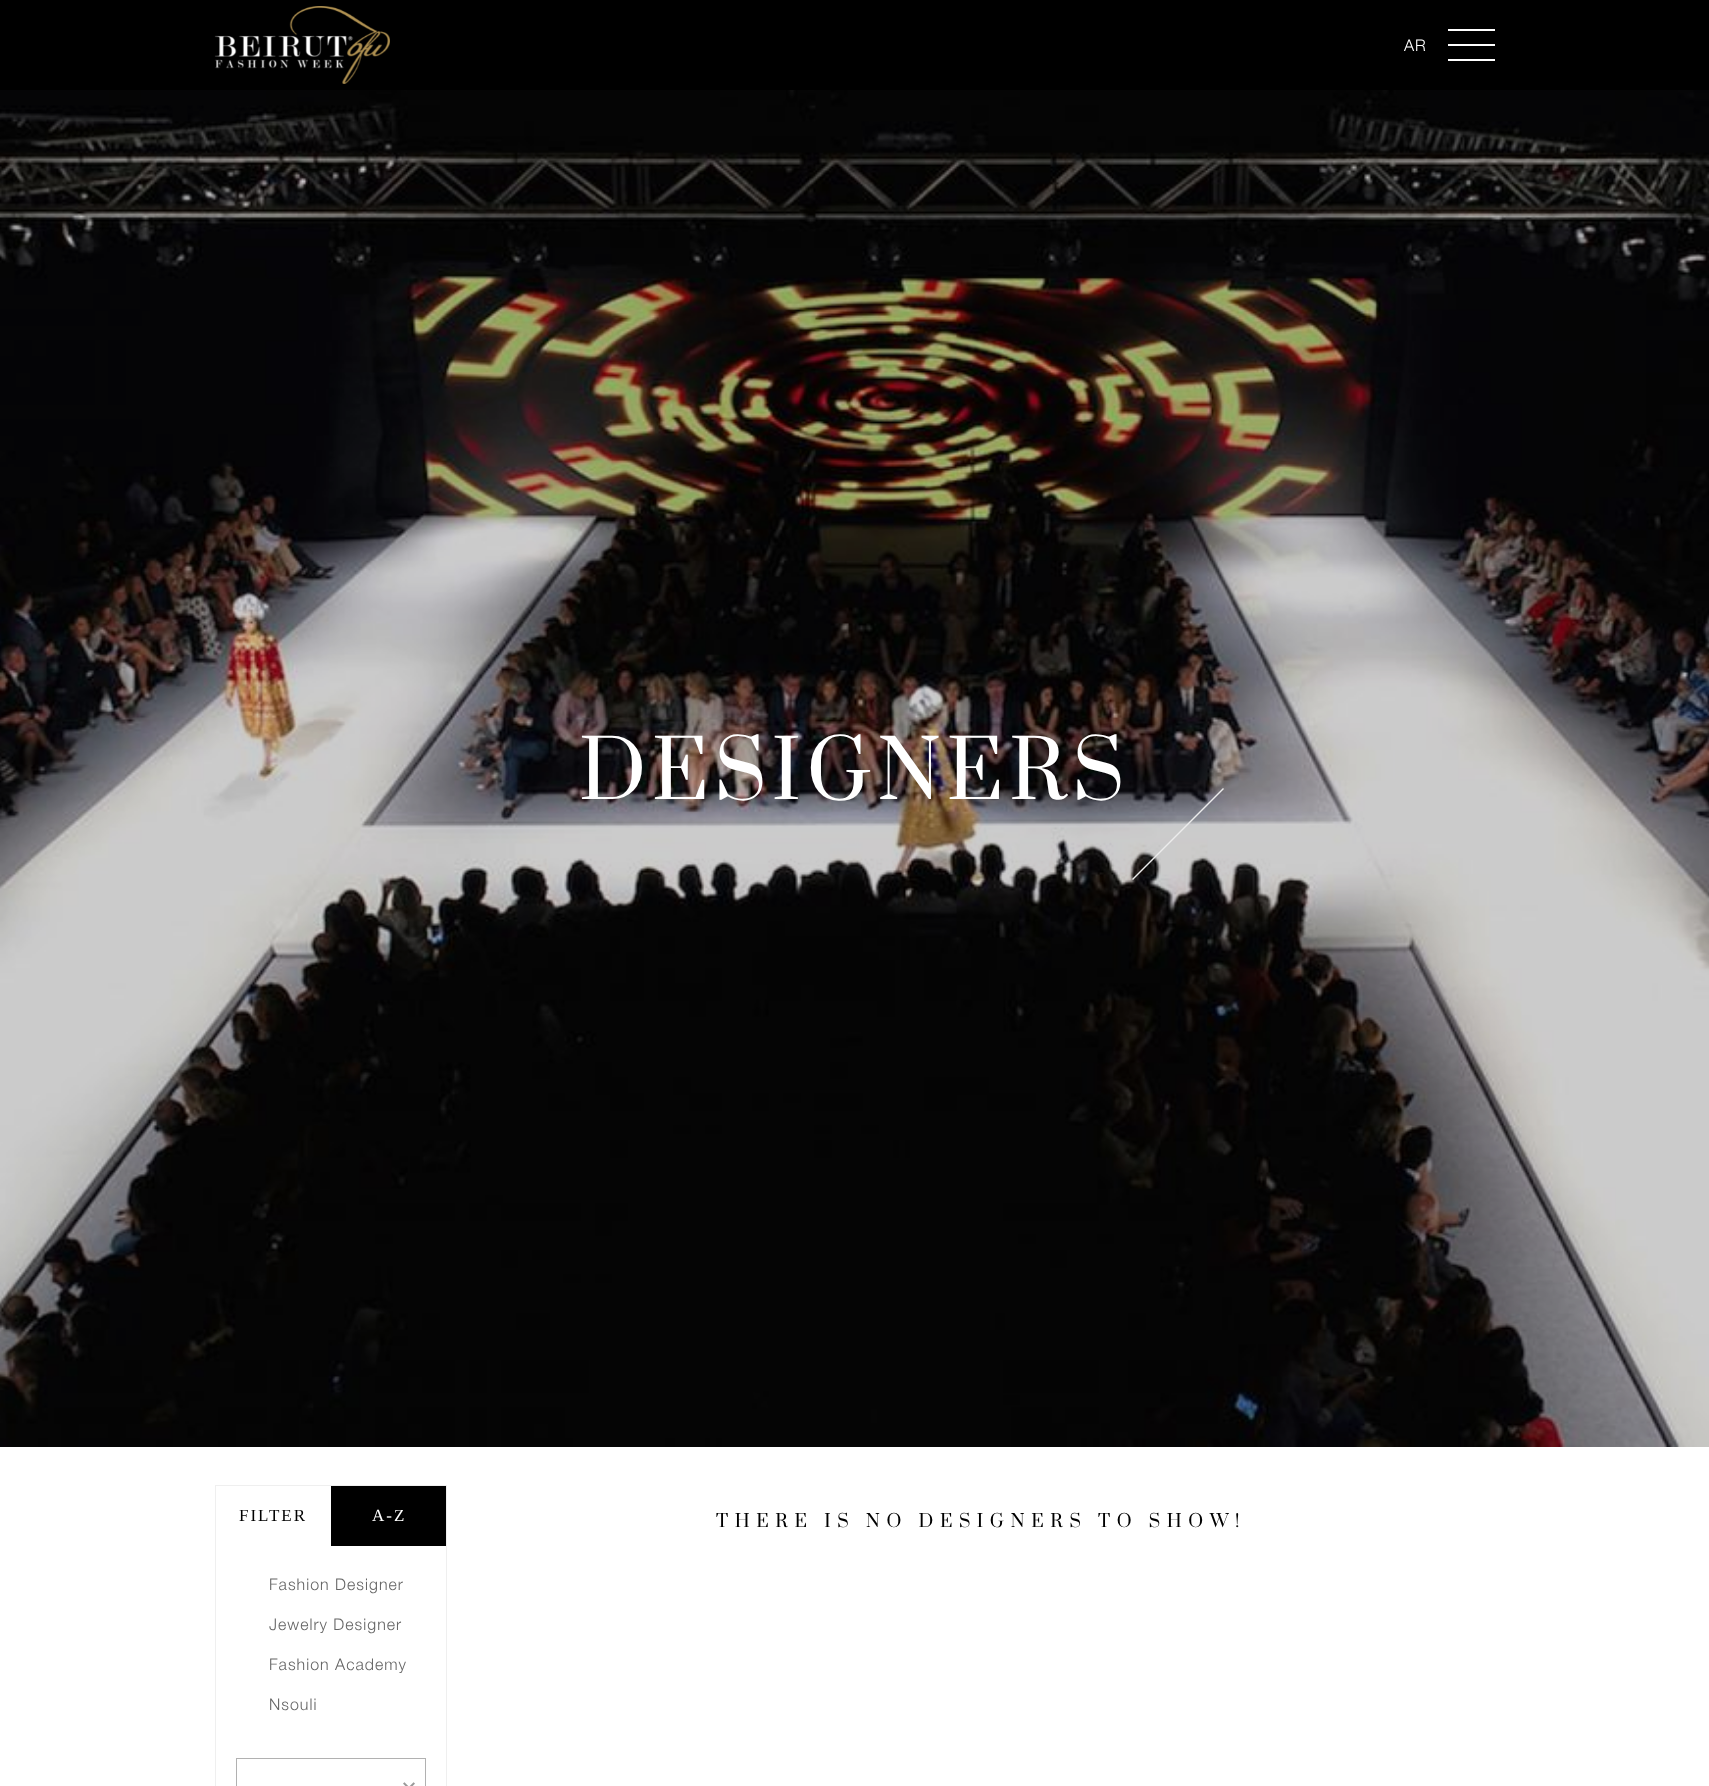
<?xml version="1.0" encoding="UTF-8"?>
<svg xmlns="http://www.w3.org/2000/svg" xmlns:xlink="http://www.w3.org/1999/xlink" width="1709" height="1786">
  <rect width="100%" height="100%" fill="#ffffff" />
  <rect width="1709" height="90" fill="#000000" />
  <image x="214" y="6" width="176" height="78" xlink:href="image1.png" />
  <rect x="1448" y="29" width="47" height="2" fill="#ffffff" />
  <rect x="1448" y="44" width="47" height="2" fill="#ffffff" />
  <rect x="1448" y="59" width="47" height="2" fill="#ffffff" />
  <image x="0" y="90" width="1709" height="1357" xlink:href="image2.png" />
  <path d="M 1223 788 l 1 1 l -91 91 l -1 -1 z" fill="#ececec" />
  <rect x="215.5" y="1485.5" width="231" height="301" fill="none" stroke="#efefef" />
  <rect x="331" y="1486" width="115" height="60" fill="#000000" />
  <image x="403" y="1782" width="12" height="4" xlink:href="image3.png" />
  <rect x="236.5" y="1758.5" width="189" height="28" fill="none" stroke="#b1b1b1" />
  <text x="1404" y="51" style="font-family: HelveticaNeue; font-size: 16px; font-weight: 300; letter-spacing: 1px; fill: #ffffff">AR</text>
  <text x="579" y="799" style="font-family: Suranna; font-size: 100px; letter-spacing: 6px; fill: #ffffff">DESIGNERS</text>
  <text x="239" y="1521" style="font-family: Liberation Serif; font-size: 17px; letter-spacing: 2px; fill: #000000">FILTER</text>
  <text x="372" y="1521" style="font-family: Liberation Serif; font-size: 17px; letter-spacing: 2px; fill: #ffffff">A-Z</text>
  <text x="269" y="1590" style="font-family: HelveticaNeue; font-size: 16px; font-weight: 300; letter-spacing: 1px; fill: #666666">Fashion Designer</text>
  <text x="269" y="1630" style="font-family: HelveticaNeue; font-size: 16px; font-weight: 300; letter-spacing: 1px; fill: #666666">Jewelry Designer</text>
  <text x="269" y="1670" style="font-family: HelveticaNeue; font-size: 16px; font-weight: 300; letter-spacing: 1px; fill: #666666">Fashion Academy</text>
  <text x="269" y="1710" style="font-family: HelveticaNeue; font-size: 16px; font-weight: 300; letter-spacing: 1px; fill: #666666">Nsouli</text>
  <text x="716" y="1527" style="font-family: Suranna; font-size: 22px; letter-spacing: 6.6px; fill: #000000">THERE IS NO DESIGNERS TO SHOW!</text>
</svg>
